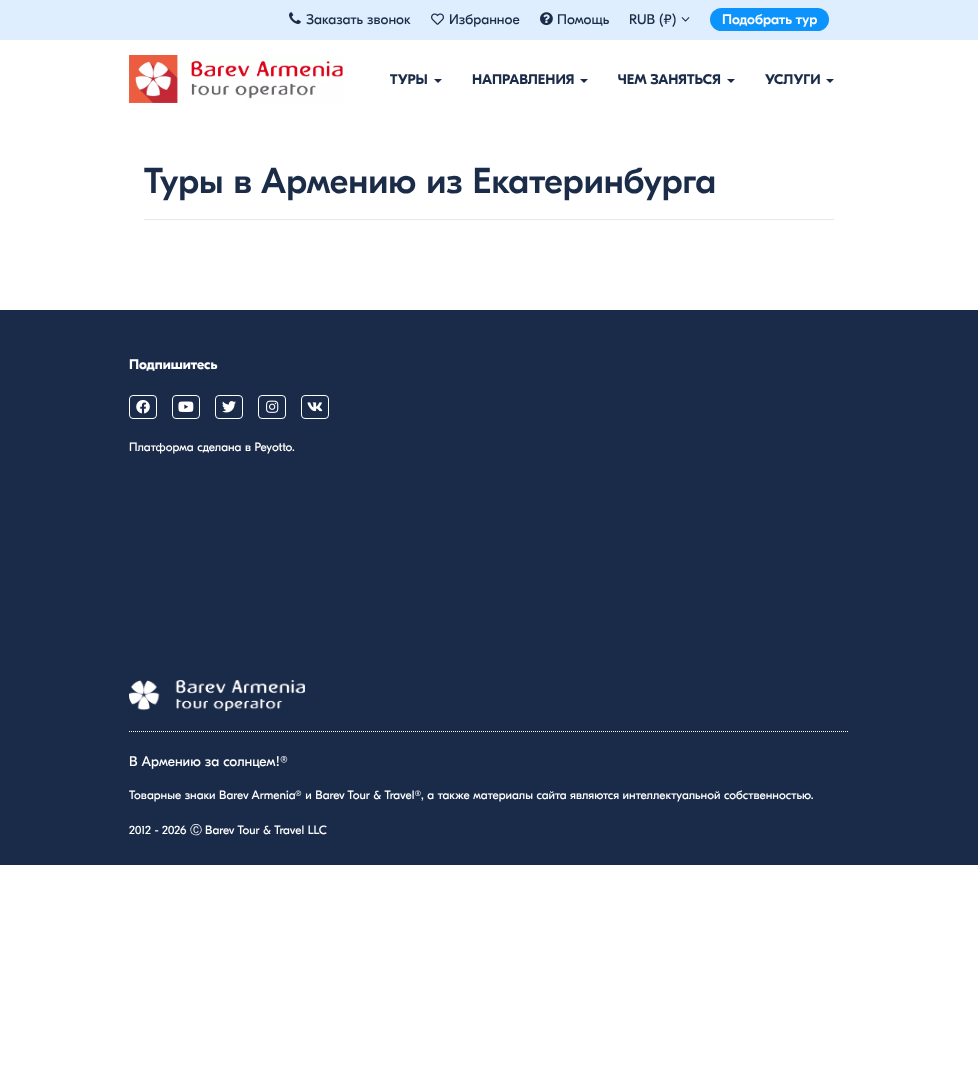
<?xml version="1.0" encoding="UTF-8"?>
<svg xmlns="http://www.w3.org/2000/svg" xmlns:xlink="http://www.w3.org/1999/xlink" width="978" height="1072">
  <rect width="100%" height="100%" fill="#ffffff" />
  <rect width="978" height="40" fill="#deeefe" />
  <image x="289" y="12" width="12" height="12" xlink:href="image1.png" />
  <image x="431" y="13" width="13" height="12" xlink:href="image2.png" />
  <image x="540" y="12" width="13" height="14" xlink:href="image3.png" />
  <image x="681" y="17" width="9" height="5" xlink:href="image4.png" />
  <rect x="710" y="8" width="119" height="23" rx="11.5" fill="#0d93fc" />
  <image x="129" y="55" width="214" height="48" xlink:href="image5.png" />
  <path d="M 434 79 h 8 l -4 4 z" fill="#1a2b49" />
  <path d="M 580 79 h 8 l -4 4 z" fill="#1a2b49" />
  <path d="M 727 79 h 8 l -4 4 z" fill="#1a2b49" />
  <path d="M 826 79 h 8 l -4 4 z" fill="#1a2b49" />
  <rect x="144" y="219" width="690" height="1" fill="#e8e8e8" />
  <rect y="310" width="978" height="555" fill="#1a2b49" />
  <rect x="129.5" y="395.5" width="27" height="23" rx="3.5" fill="none" stroke="#ffffff" />
  <image x="136" y="400" width="14" height="14" xlink:href="image6.png" />
  <rect x="172.5" y="395.5" width="27" height="23" rx="3.5" fill="none" stroke="#ffffff" />
  <image x="178" y="401" width="16" height="11" xlink:href="image7.png" />
  <rect x="215.5" y="395.5" width="27" height="23" rx="3.5" fill="none" stroke="#ffffff" />
  <image x="222" y="401" width="14" height="12" xlink:href="image8.png" />
  <rect x="258.5" y="395.5" width="27" height="23" rx="3.5" fill="none" stroke="#ffffff" />
  <image x="266" y="400" width="13" height="13" xlink:href="image9.png" />
  <rect x="301.5" y="395.5" width="27" height="23" rx="3.5" fill="none" stroke="#ffffff" />
  <image x="307" y="402" width="16" height="10" xlink:href="image10.png" />
  <image x="129" y="680" width="176" height="31" xlink:href="image11.png" />
  <path d="M 129 731.5 h 720" fill="none" stroke="#ffffff" stroke-dasharray="1 1" />
  <text x="306" y="24" style="font-family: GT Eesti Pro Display; font-size: 14px; fill: #1b2c49">Заказать звонок</text>
  <text x="449" y="24" style="font-family: GT Eesti Pro Display; font-size: 14px; fill: #1b2c49">Избранное</text>
  <text x="557" y="24" style="font-family: GT Eesti Pro Display; font-size: 14px; fill: #1b2c49">Помощь</text>
  <text x="629" y="24" style="font-family: GT Eesti Pro Display; font-size: 14px; fill: #1b2c49">RUB (₽)</text>
  <text x="722" y="24" style="font-family: GT Eesti Pro Display; font-size: 14px; font-weight: 500; fill: #ffffff">Подобрать тур</text>
  <text x="390" y="84" style="font-family: GT Eesti Pro Display; font-size: 14px; font-weight: bold; fill: #1b2c49">ТУРЫ</text>
  <text x="472" y="84" style="font-family: GT Eesti Pro Display; font-size: 14px; font-weight: bold; fill: #1b2c49">НАПРАВЛЕНИЯ</text>
  <text x="618" y="84" style="font-family: GT Eesti Pro Display; font-size: 14px; font-weight: bold; fill: #1b2c49">ЧЕМ ЗАНЯТЬСЯ</text>
  <text x="765" y="84" style="font-family: GT Eesti Pro Display; font-size: 14px; font-weight: bold; fill: #1b2c49">УСЛУГИ</text>
  <text x="144" y="193" style="font-family: GT Eesti Pro Display; font-size: 36px; font-weight: 500; fill: #1b2c49">Туры в Армению из Екатеринбурга</text>
  <text x="129" y="369" style="font-family: GT Eesti Pro Display; font-size: 14px; font-weight: bold; fill: #ffffff">Подпишитесь</text>
  <text x="129" y="451" style="font-family: GT Eesti Pro Display; font-size: 12px; fill: #ffffff">Платформа сделана в Peyotto.</text>
  <text x="129" y="766" style="font-family: GT Eesti Pro Display; font-size: 14px; fill: #ffffff">В Армению за солнцем!®</text>
  <text x="129" y="799" style="font-family: GT Eesti Pro Display; font-size: 12px; fill: #ffffff">Товарные знаки Barev Armenia® и Barev Tour &amp; Travel®, а также материалы сайта являются интеллектуальной собственностью.</text>
  <text x="129" y="834" style="font-family: GT Eesti Pro Display; font-size: 12px; fill: #ffffff">2012 - 2026</text>
  <text x="190" y="834" style="font-family: WenQuanYi Zen Hei; font-size: 12px; font-weight: 500; fill: #ffffff">Ⓒ</text>
  <text x="205" y="834" style="font-family: GT Eesti Pro Display; font-size: 12px; fill: #ffffff">Barev Tour &amp; Travel LLC</text>
</svg>
